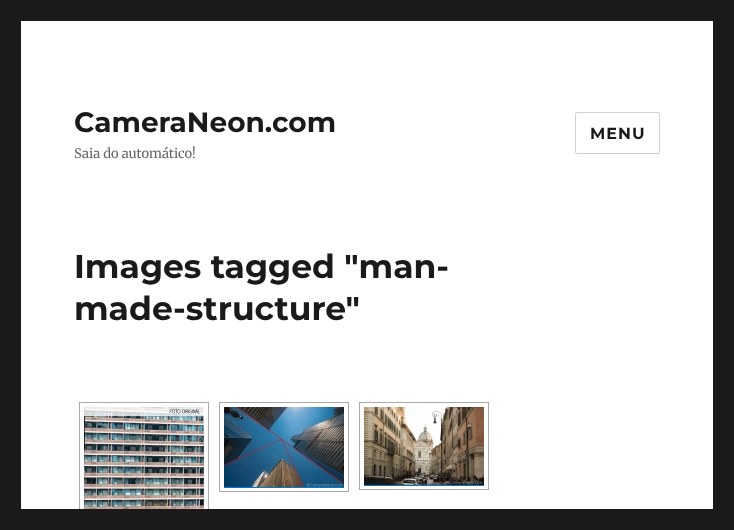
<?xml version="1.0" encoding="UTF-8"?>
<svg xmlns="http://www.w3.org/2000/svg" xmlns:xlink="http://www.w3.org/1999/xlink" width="734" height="530">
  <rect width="100%" height="100%" fill="#1a1a1a" />
  <rect x="21" y="21" width="692" height="488" fill="#ffffff" />
  <rect x="575.5" y="112.5" width="84" height="41" rx="1.5" fill="none" stroke="#d1d1d1" />
  <rect x="79.5" y="402.5" width="129" height="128" fill="none" stroke="#a9a9a9" />
  <image x="84" y="407" width="120" height="102" xlink:href="image1.png" />
  <rect x="219.5" y="402.5" width="129" height="89" fill="none" stroke="#a9a9a9" />
  <rect x="224" y="487" width="120" height="1" fill="#007acc" />
  <image x="224" y="407" width="120" height="80" xlink:href="image2.png" />
  <rect x="359.5" y="402.5" width="129" height="87" fill="none" stroke="#a9a9a9" />
  <rect x="364" y="485" width="120" height="1" fill="#007acc" />
  <image x="364" y="407" width="120" height="78" xlink:href="image3.png" />
  <rect x="79" y="509" width="130" height="21" fill="#1a1a1a" />
  <text x="74" y="132" style="font-family: Montserrat; font-size: 28px; font-weight: bold; fill: #1a1a1a">CameraNeon.com</text>
  <text x="74" y="158" style="font-family: Merriweather; font-size: 13px; fill: #686868">Saia do automático!</text>
  <text x="590" y="139" style="font-family: Montserrat; font-size: 16px; font-weight: bold; letter-spacing: 1px; fill: #1a1a1a">MENU</text>
  <text x="74" y="278" style="font-family: Montserrat; font-size: 33px; font-weight: bold; fill: #1a1a1a">Images tagged "man-</text>
  <text x="74" y="320" style="font-family: Montserrat; font-size: 33px; font-weight: bold; fill: #1a1a1a">made-structure"</text>
</svg>
